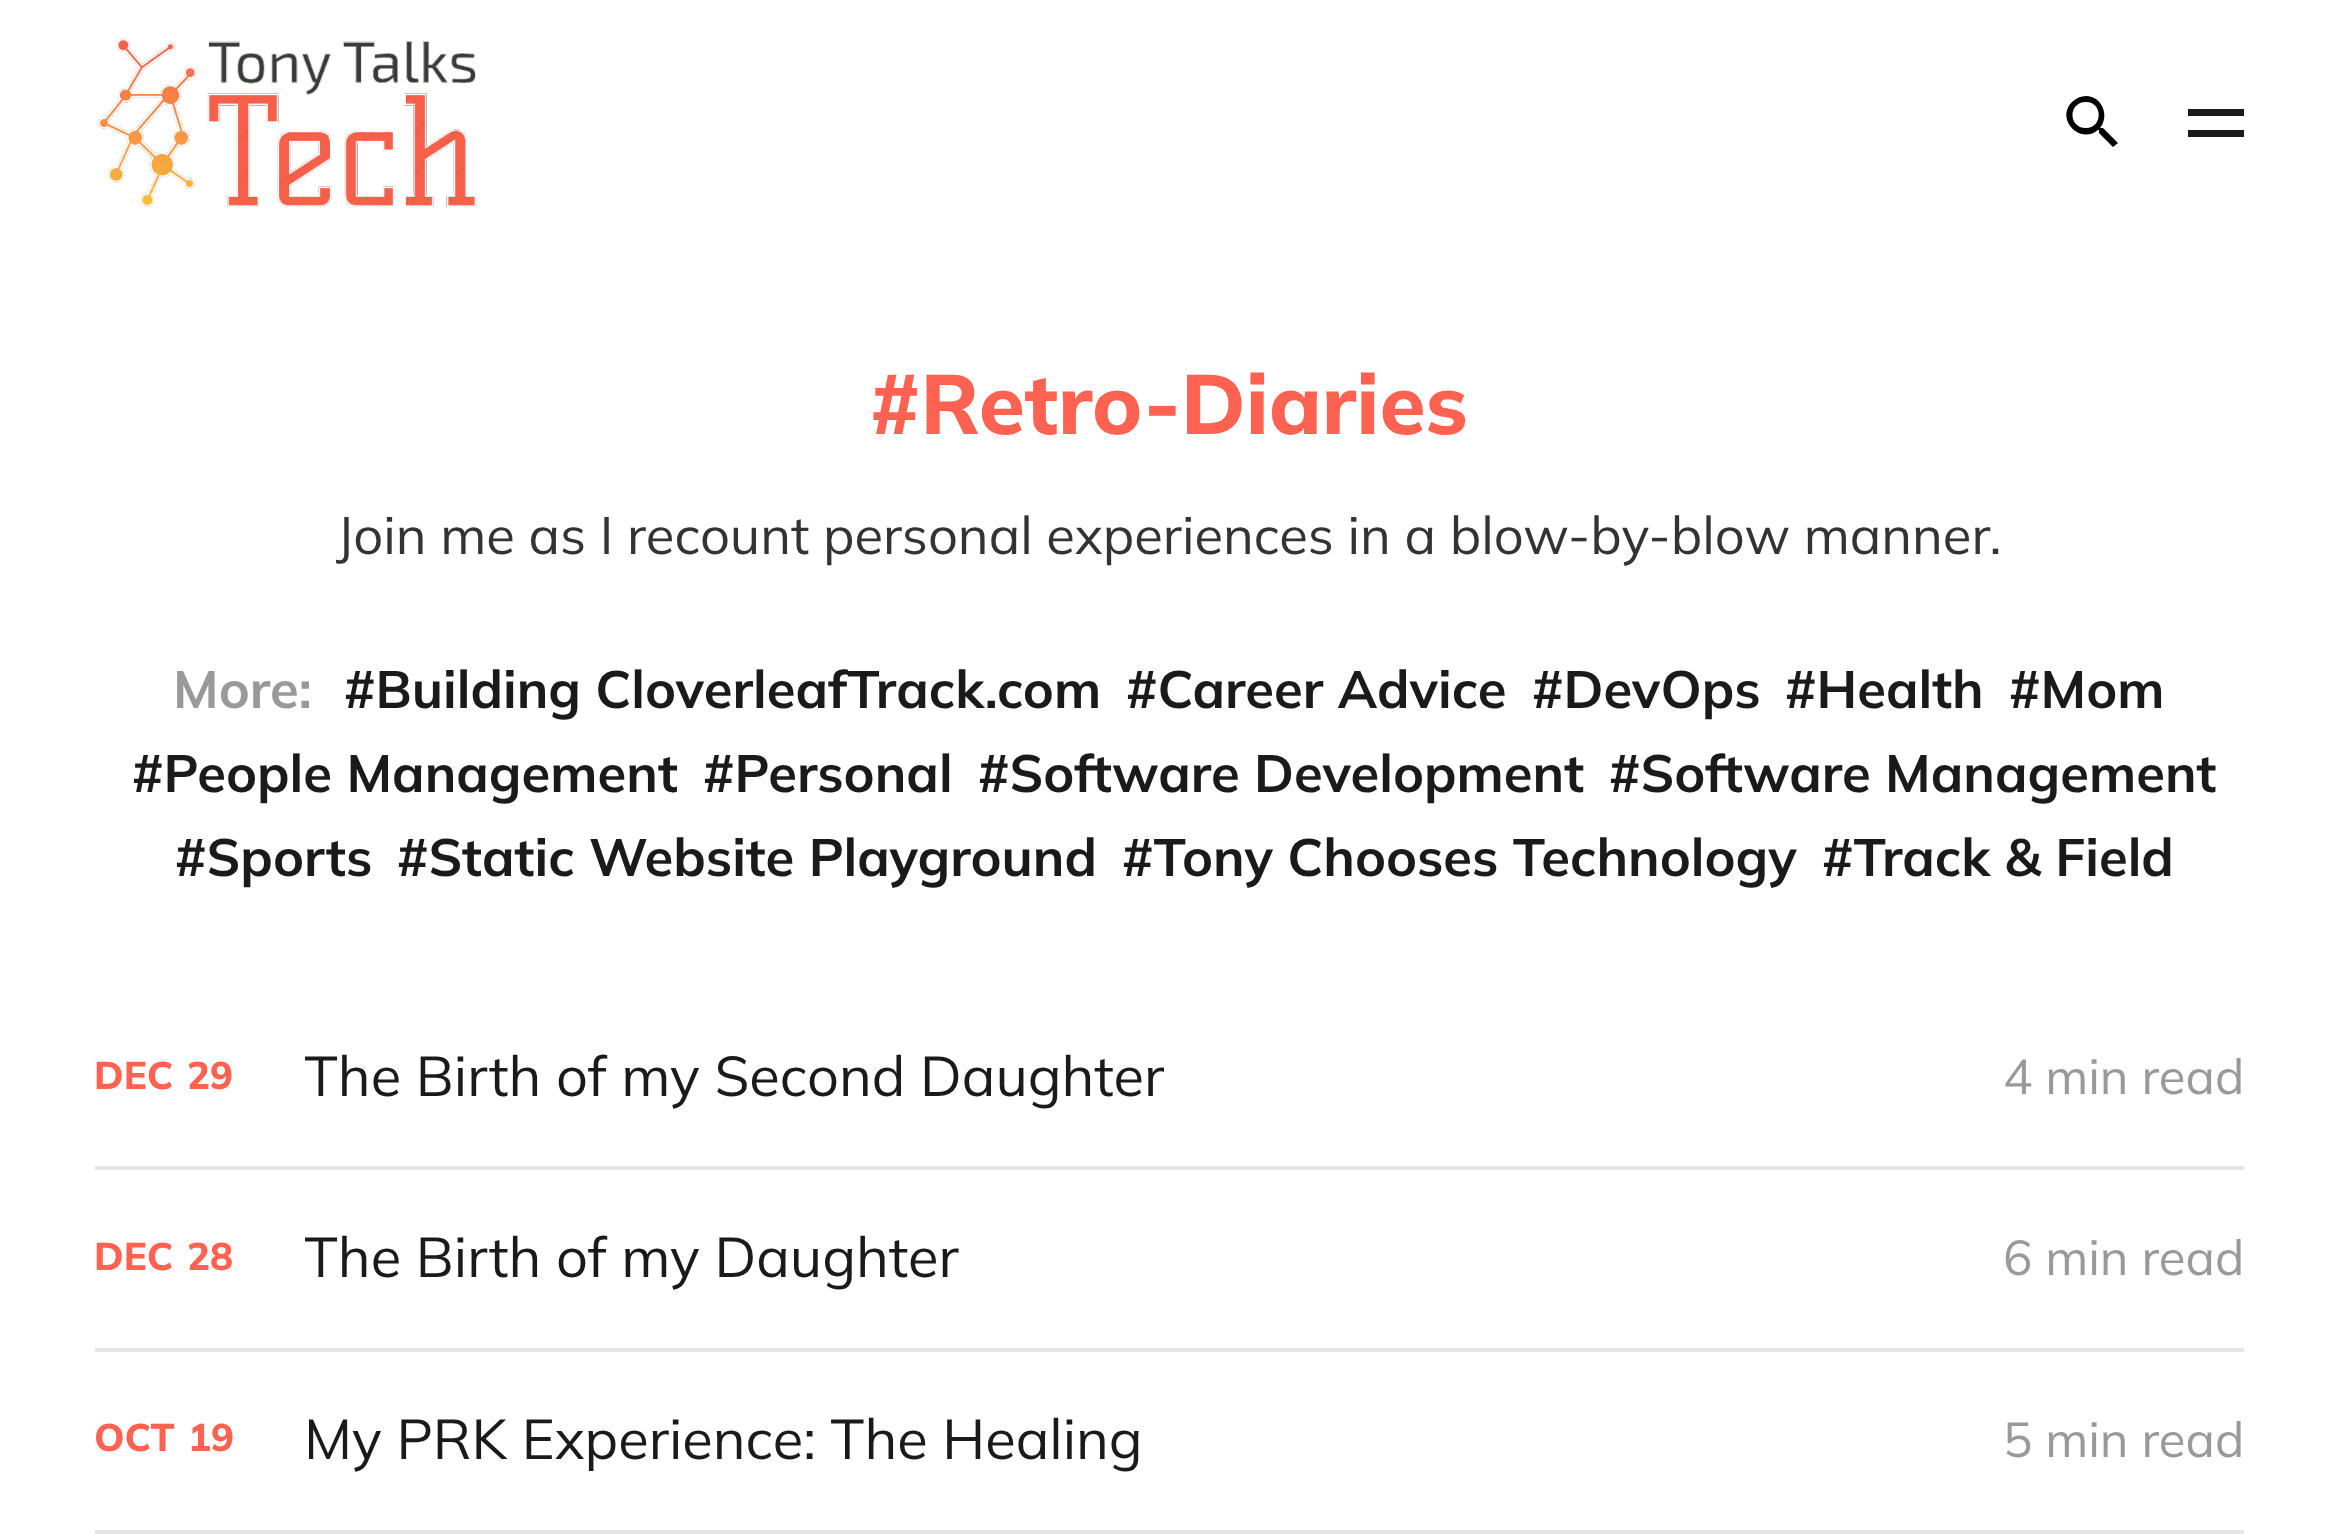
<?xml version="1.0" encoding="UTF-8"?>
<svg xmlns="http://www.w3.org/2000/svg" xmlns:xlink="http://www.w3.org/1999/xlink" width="2336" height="1534">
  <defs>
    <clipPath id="clip1"><rect x="305" y="1040" width="1697" height="73" /></clipPath>
    <clipPath id="clip2"><rect x="305" y="1222" width="1697" height="73" /></clipPath>
  </defs>
  <rect width="100%" height="100%" fill="#ffffff" />
  <image x="97" y="38" width="380" height="169" xlink:href="image1.png" />
  <path d="M 2086 96 c 16 0 24 20 14 32 h 1 h 2 l 15 15 l -5 4 l -14 -14 v -3 h -1 c -18 15 -43 -11 -26 -28 c 4 -4 9 -6 14 -6 z m 0 6 c -18 0 -18 26 0 26 c 17 0 17 -26 0 -26 z" fill="#000000" />
  <rect x="2188" y="109" width="56" height="7" fill="#1a1a1a" />
  <rect x="2188" y="130" width="56" height="7" fill="#1a1a1a" />
  <rect x="95" y="1166" width="2149" height="4" fill="#e6e6e6" />
  <rect x="95" y="1348" width="2149" height="4" fill="#e6e6e6" />
  <rect x="95" y="1530" width="2149" height="4" fill="#e6e6e6" />
  <text x="870" y="434" style="font-family: Mulish; font-size: 84px; font-weight: 800; fill: #ff6250">#Retro-Diaries</text>
  <text x="336" y="554" style="font-family: Mulish; font-size: 52.5px; fill: #333333">Join me as I recount personal experiences in a blow-by-blow manner.</text>
  <text x="173" y="708" style="font-family: Mulish; font-size: 52.5px; font-weight: bold; fill: #999999">More:</text>
  <text x="344" y="708" style="font-family: Mulish; font-size: 52.5px; font-weight: bold; fill: #1a1a1a">#Building CloverleafTrack.com</text>
  <text x="1126" y="708" style="font-family: Mulish; font-size: 52.5px; font-weight: bold; fill: #1a1a1a">#Career Advice</text>
  <text x="1532" y="708" style="font-family: Mulish; font-size: 52.5px; font-weight: bold; fill: #1a1a1a">#DevOps</text>
  <text x="1785" y="708" style="font-family: Mulish; font-size: 52.5px; font-weight: bold; fill: #1a1a1a">#Health</text>
  <text x="2009" y="708" style="font-family: Mulish; font-size: 52.5px; font-weight: bold; fill: #1a1a1a">#Mom</text>
  <text x="132" y="792" style="font-family: Mulish; font-size: 52.5px; font-weight: bold; fill: #1a1a1a">#People Management</text>
  <text x="703" y="792" style="font-family: Mulish; font-size: 52.5px; font-weight: bold; fill: #1a1a1a">#Personal</text>
  <text x="978" y="792" style="font-family: Mulish; font-size: 52.5px; font-weight: bold; fill: #1a1a1a">#Software Development</text>
  <text x="1609" y="792" style="font-family: Mulish; font-size: 52.5px; font-weight: bold; fill: #1a1a1a">#Software Management</text>
  <text x="175" y="876" style="font-family: Mulish; font-size: 52.5px; font-weight: bold; fill: #1a1a1a">#Sports</text>
  <text x="397" y="876" style="font-family: Mulish; font-size: 52.5px; font-weight: bold; fill: #1a1a1a">#Static Website Playground</text>
  <text x="1122" y="876" style="font-family: Mulish; font-size: 52.5px; font-weight: bold; fill: #1a1a1a">#Tony Chooses Technology</text>
  <text x="1822" y="876" style="font-family: Mulish; font-size: 52.5px; font-weight: bold; fill: #1a1a1a">#Track &amp; Field</text>
  <text x="94" y="1089" style="font-family: Mulish; font-size: 38.5px; font-weight: 800; fill: #ff6250">DEC</text>
  <text x="187" y="1089" style="font-family: Mulish; font-size: 38.5px; font-weight: 800; fill: #ff6250">29</text>
  <g clip-path="url(#clip1)">
    <text x="304" y="1096" style="font-family: Mulish; font-size: 56px; fill: #1a1a1a">The Birth of my Second Daughter</text>
  </g>
  <text x="2003" y="1094" style="font-family: Mulish; font-size: 49px; fill: #999999">4 min read</text>
  <text x="94" y="1270" style="font-family: Mulish; font-size: 38.5px; font-weight: 800; fill: #ff6250">DEC</text>
  <text x="187" y="1270" style="font-family: Mulish; font-size: 38.5px; font-weight: 800; fill: #ff6250">28</text>
  <g clip-path="url(#clip2)">
    <text x="304" y="1277" style="font-family: Mulish; font-size: 56px; fill: #1a1a1a">The Birth of my Daughter</text>
  </g>
  <text x="2003" y="1275" style="font-family: Mulish; font-size: 49px; fill: #999999">6 min read</text>
  <text x="94" y="1451" style="font-family: Mulish; font-size: 38.5px; font-weight: 800; fill: #ff6250">OCT</text>
  <text x="188" y="1451" style="font-family: Mulish; font-size: 38.5px; font-weight: 800; fill: #ff6250">19</text>
  <text x="304" y="1459" style="font-family: Mulish; font-size: 56px; fill: #1a1a1a">My PRK Experience: The Healing</text>
  <text x="2003" y="1457" style="font-family: Mulish; font-size: 49px; fill: #999999">5 min read</text>
</svg>
